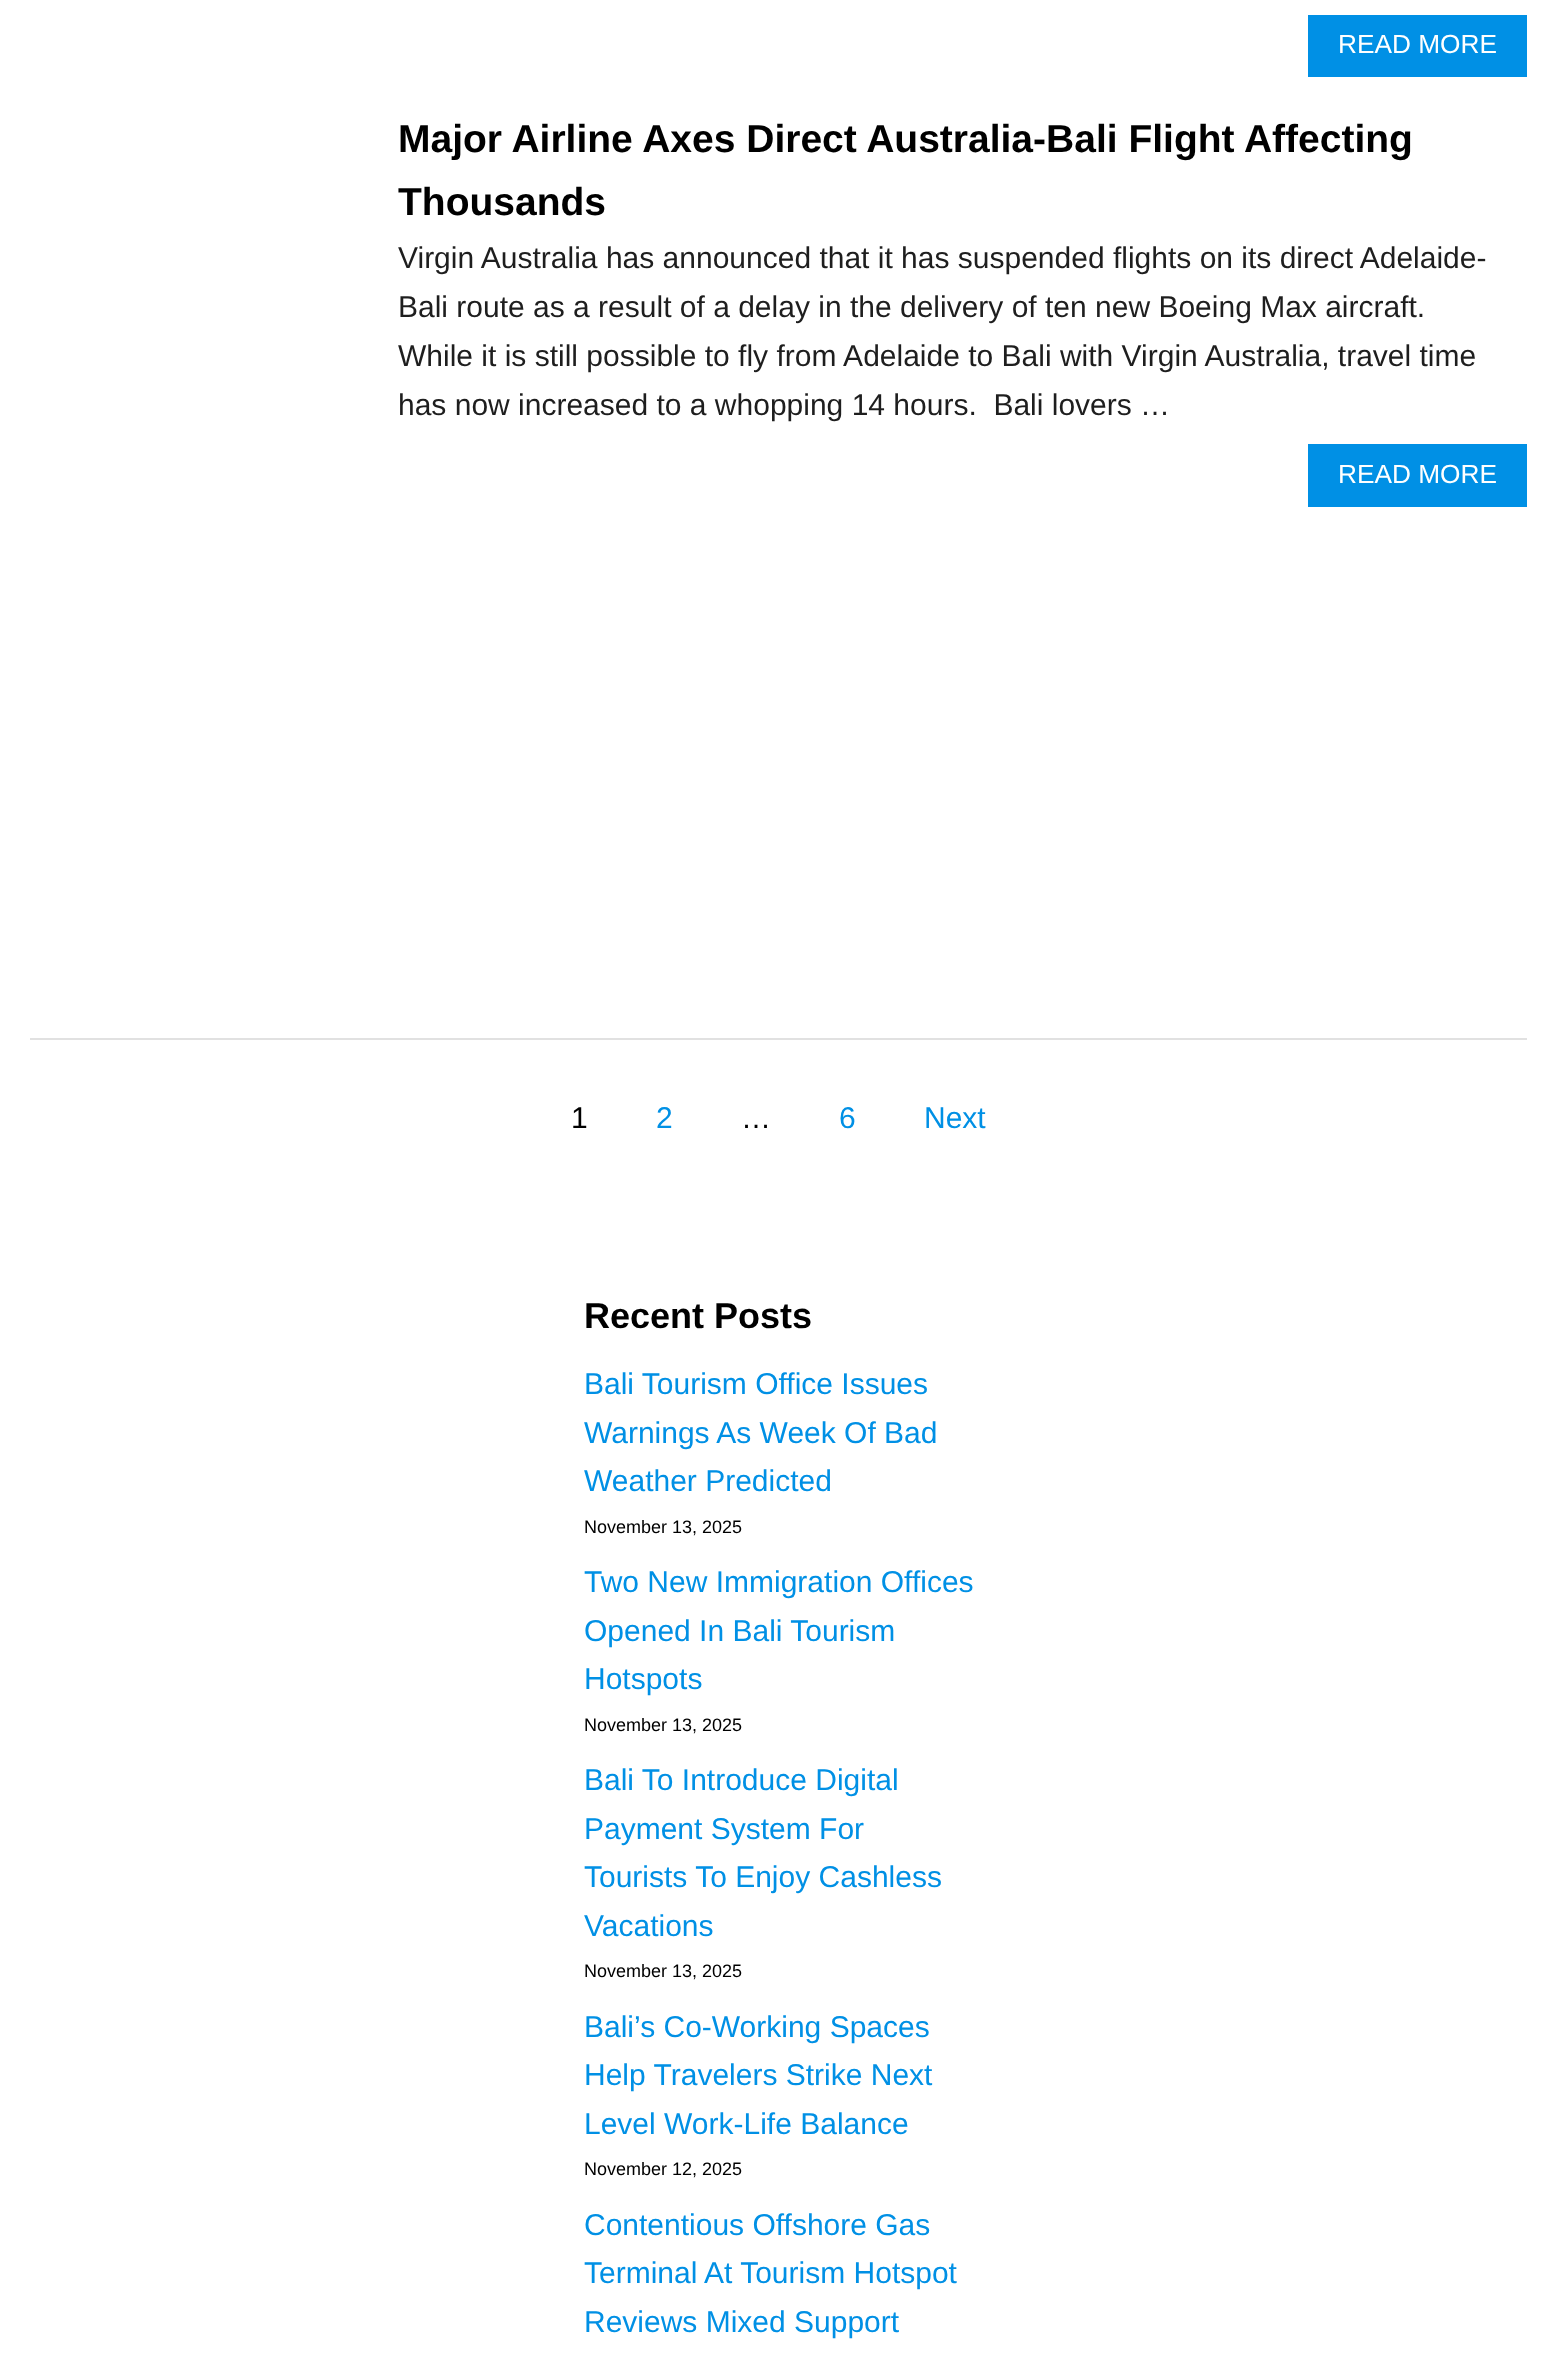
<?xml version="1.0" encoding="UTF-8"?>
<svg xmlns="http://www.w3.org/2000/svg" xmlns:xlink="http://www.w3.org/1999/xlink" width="1557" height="2371">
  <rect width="100%" height="100%" fill="#ffffff" />
  <rect x="1308" y="15" width="219" height="62" fill="#0090e5" />
  <rect x="1308" y="444" width="219" height="63" fill="#0090e5" />
  <rect x="30" y="1038" width="1497" height="2" fill="#e1e1e1" />
  <text x="1338" y="53" style="font-family: Liberation Sans; font-size: 26.25px; fill: #ffffff">READ MORE</text>
  <text x="398" y="152" style="font-family: Liberation Sans; font-size: 39px; font-weight: bold; fill: #000000">Major Airline Axes Direct Australia-Bali Flight Affecting</text>
  <text x="398" y="215" style="font-family: Liberation Sans; font-size: 39px; font-weight: bold; fill: #000000">Thousands</text>
  <text x="398" y="268" style="font-family: Liberation Sans; font-size: 30px; fill: #1e1e1e">Virgin Australia has announced that it has suspended flights on its direct Adelaide-</text>
  <text x="398" y="317" style="font-family: Liberation Sans; font-size: 30px; fill: #1e1e1e">Bali route as a result of a delay in the delivery of ten new Boeing Max aircraft.</text>
  <text x="398" y="366" style="font-family: Liberation Sans; font-size: 30px; fill: #1e1e1e">While it is still possible to fly from Adelaide to Bali with Virgin Australia, travel time</text>
  <text x="398" y="415" style="font-family: Liberation Sans; font-size: 30px; fill: #1e1e1e" xml:space="preserve">has now increased to a whopping 14 hours.  Bali lovers …</text>
  <text x="1338" y="483" style="font-family: Liberation Sans; font-size: 26.25px; fill: #ffffff">READ MORE</text>
  <text x="571" y="1128" style="font-family: Liberation Sans; font-size: 30px; fill: #000000">1</text>
  <text x="656" y="1128" style="font-family: Liberation Sans; font-size: 30px; fill: #0090e5">2</text>
  <text x="741" y="1128" style="font-family: Liberation Sans; font-size: 30px; fill: #000000">…</text>
  <text x="839" y="1128" style="font-family: Liberation Sans; font-size: 30px; fill: #0090e5">6</text>
  <text x="924" y="1128" style="font-family: Liberation Sans; font-size: 30px; fill: #0090e5">Next</text>
  <text x="584" y="1328" style="font-family: Liberation Sans; font-size: 36px; font-weight: bold; fill: #000000">Recent Posts</text>
  <text x="584" y="1394" style="font-family: Liberation Sans; font-size: 30px; fill: #0090e5">Bali Tourism Office Issues</text>
  <text x="584" y="1443" style="font-family: Liberation Sans; font-size: 30px; fill: #0090e5">Warnings As Week Of Bad</text>
  <text x="584" y="1491" style="font-family: Liberation Sans; font-size: 30px; fill: #0090e5">Weather Predicted</text>
  <text x="584" y="1533" style="font-family: Liberation Sans; font-size: 18px; fill: #000000">November 13, 2025</text>
  <text x="584" y="1592" style="font-family: Liberation Sans; font-size: 30px; fill: #0090e5">Two New Immigration Offices</text>
  <text x="584" y="1641" style="font-family: Liberation Sans; font-size: 30px; fill: #0090e5">Opened In Bali Tourism</text>
  <text x="584" y="1689" style="font-family: Liberation Sans; font-size: 30px; fill: #0090e5">Hotspots</text>
  <text x="584" y="1731" style="font-family: Liberation Sans; font-size: 18px; fill: #000000">November 13, 2025</text>
  <text x="584" y="1790" style="font-family: Liberation Sans; font-size: 30px; fill: #0090e5">Bali To Introduce Digital</text>
  <text x="584" y="1839" style="font-family: Liberation Sans; font-size: 30px; fill: #0090e5">Payment System For</text>
  <text x="584" y="1887" style="font-family: Liberation Sans; font-size: 30px; fill: #0090e5">Tourists To Enjoy Cashless</text>
  <text x="584" y="1936" style="font-family: Liberation Sans; font-size: 30px; fill: #0090e5">Vacations</text>
  <text x="584" y="1977" style="font-family: Liberation Sans; font-size: 18px; fill: #000000">November 13, 2025</text>
  <text x="584" y="2037" style="font-family: Liberation Sans; font-size: 30px; fill: #0090e5">Bali’s Co-Working Spaces</text>
  <text x="584" y="2085" style="font-family: Liberation Sans; font-size: 30px; fill: #0090e5">Help Travelers Strike Next</text>
  <text x="584" y="2134" style="font-family: Liberation Sans; font-size: 30px; fill: #0090e5">Level Work-Life Balance</text>
  <text x="584" y="2175" style="font-family: Liberation Sans; font-size: 18px; fill: #000000">November 12, 2025</text>
  <text x="584" y="2235" style="font-family: Liberation Sans; font-size: 30px; fill: #0090e5">Contentious Offshore Gas</text>
  <text x="584" y="2283" style="font-family: Liberation Sans; font-size: 30px; fill: #0090e5">Terminal At Tourism Hotspot</text>
  <text x="584" y="2332" style="font-family: Liberation Sans; font-size: 30px; fill: #0090e5">Reviews Mixed Support</text>
</svg>
